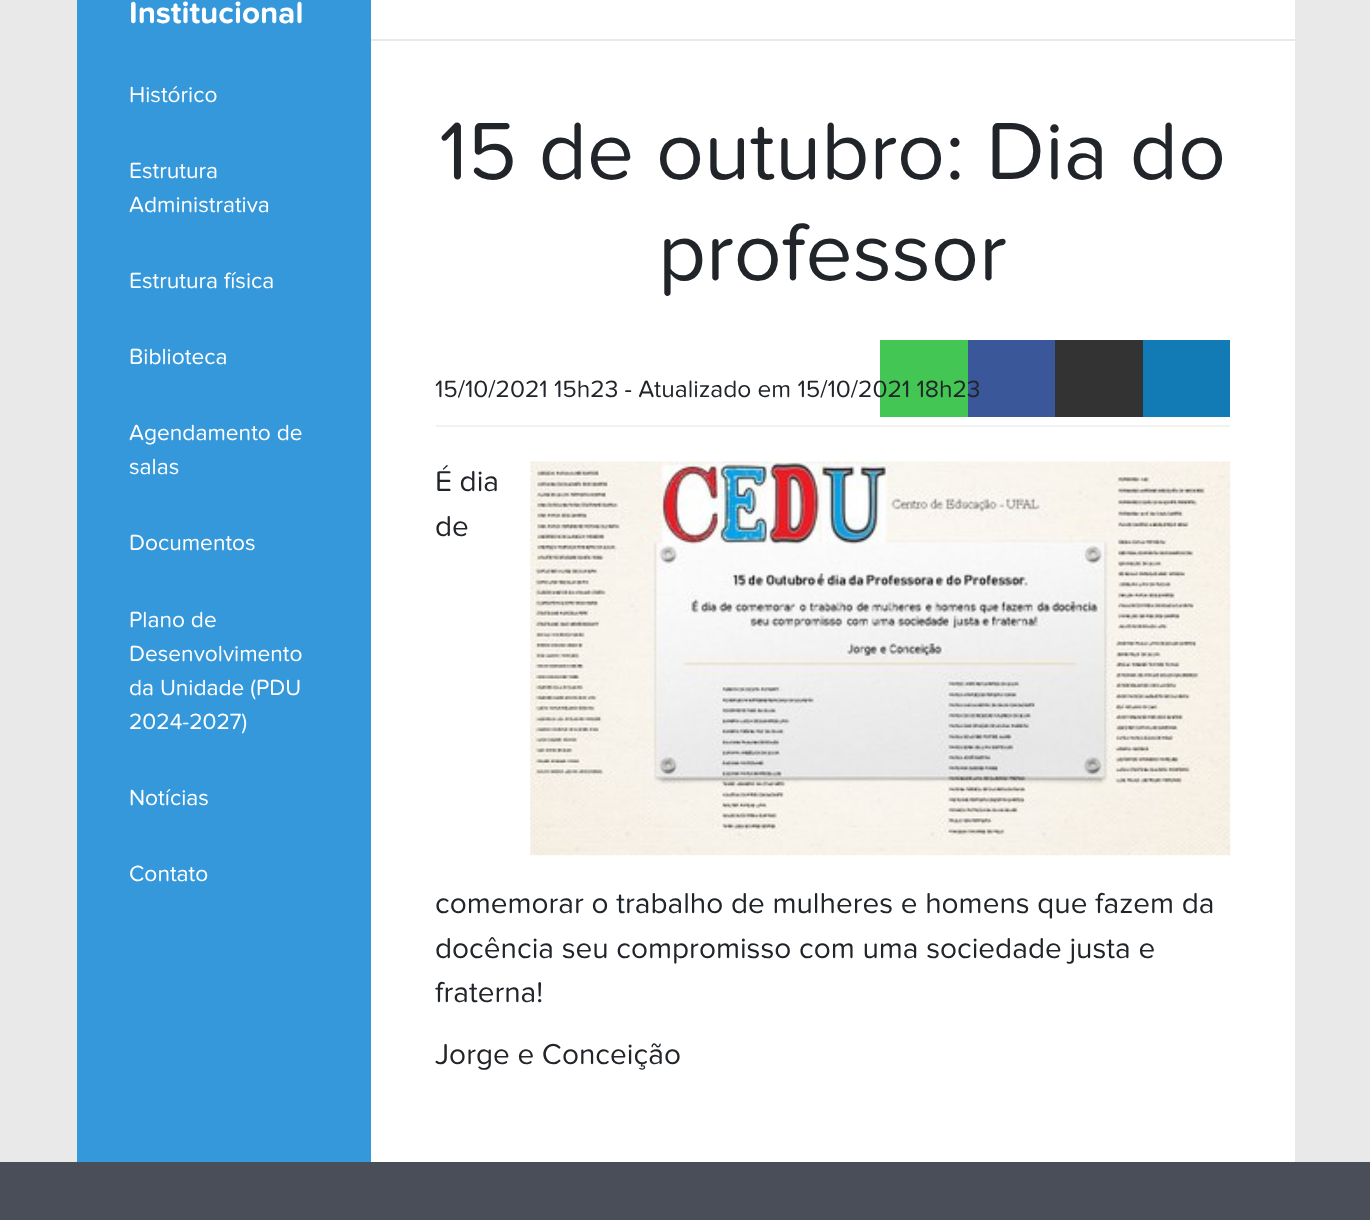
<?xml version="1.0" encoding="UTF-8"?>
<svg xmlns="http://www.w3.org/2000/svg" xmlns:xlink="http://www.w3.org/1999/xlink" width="1370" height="1220">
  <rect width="100%" height="100%" fill="#e9e9e9" />
  <rect x="371" width="924" height="1162" fill="#ffffff" />
  <rect x="77" width="294" height="1162" fill="#3498db" />
  <rect x="371" y="39" width="924" height="2" fill="#e9e9e9" />
  <rect x="436" y="425" width="794" height="2" fill="#f2f2f2" />
  <rect x="880" y="340" width="88" height="77" fill="#43c654" />
  <rect x="968" y="340" width="87" height="77" fill="#3a5799" />
  <rect x="1055" y="340" width="88" height="77" fill="#333333" />
  <rect x="1143" y="340" width="87" height="77" fill="#127bb5" />
  <image x="530" y="461" width="701" height="395" xlink:href="image1.png" />
  <rect y="1162" width="1370" height="58" fill="#4a4e58" />
  <text x="129" y="23" style="font-family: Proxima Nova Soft; font-size: 31.5px; font-weight: bold; fill: #ffffff">Institucional</text>
  <text x="129" y="102" style="font-family: Proxima Nova Soft; font-size: 22.75px; fill: #ffffff">Histórico</text>
  <text x="129" y="178" style="font-family: Proxima Nova Soft; font-size: 22.75px; fill: #ffffff">Estrutura</text>
  <text x="129" y="212" style="font-family: Proxima Nova Soft; font-size: 22.75px; fill: #ffffff">Administrativa</text>
  <text x="129" y="288" style="font-family: Proxima Nova Soft; font-size: 22.75px; fill: #ffffff">Estrutura física</text>
  <text x="129" y="364" style="font-family: Proxima Nova Soft; font-size: 22.75px; fill: #ffffff">Biblioteca</text>
  <text x="129" y="440" style="font-family: Proxima Nova Soft; font-size: 22.75px; fill: #ffffff">Agendamento de</text>
  <text x="129" y="474" style="font-family: Proxima Nova Soft; font-size: 22.75px; fill: #ffffff">salas</text>
  <text x="129" y="550" style="font-family: Proxima Nova Soft; font-size: 22.75px; fill: #ffffff">Documentos</text>
  <text x="129" y="627" style="font-family: Proxima Nova Soft; font-size: 22.75px; fill: #ffffff">Plano de</text>
  <text x="129" y="661" style="font-family: Proxima Nova Soft; font-size: 22.75px; fill: #ffffff">Desenvolvimento</text>
  <text x="129" y="695" style="font-family: Proxima Nova Soft; font-size: 22.75px; fill: #ffffff">da Unidade (PDU</text>
  <text x="129" y="729" style="font-family: Proxima Nova Soft; font-size: 22.75px; fill: #ffffff">2024-2027)</text>
  <text x="129" y="805" style="font-family: Proxima Nova Soft; font-size: 22.75px; fill: #ffffff">Notícias</text>
  <text x="129" y="881" style="font-family: Proxima Nova Soft; font-size: 22.75px; fill: #ffffff">Contato</text>
  <text x="439" y="179" style="font-family: Proxima Nova Soft; font-size: 84px; fill: #212529">15 de outubro: Dia do</text>
  <text x="658" y="280" style="font-family: Proxima Nova Soft; font-size: 84px; fill: #212529">professor</text>
  <text x="435" y="397" style="font-family: Proxima Nova Soft; font-size: 24.5px; fill: #212529">15/10/2021 15h23 - Atualizado em 15/10/2021 18h23</text>
  <text x="435" y="491" style="font-family: Proxima Nova Soft; font-size: 29.75px; fill: #212529">É dia</text>
  <text x="435" y="536" style="font-family: Proxima Nova Soft; font-size: 29.75px; fill: #212529">de</text>
  <text x="435" y="913" style="font-family: Proxima Nova Soft; font-size: 29.75px; fill: #212529">comemorar o trabalho de mulheres e homens que fazem da</text>
  <text x="435" y="958" style="font-family: Proxima Nova Soft; font-size: 29.75px; fill: #212529">docência seu compromisso com uma sociedade justa e</text>
  <text x="435" y="1002" style="font-family: Proxima Nova Soft; font-size: 29.75px; fill: #212529">fraterna!</text>
  <text x="435" y="1064" style="font-family: Proxima Nova Soft; font-size: 29.75px; fill: #212529">Jorge e Conceição</text>
</svg>
